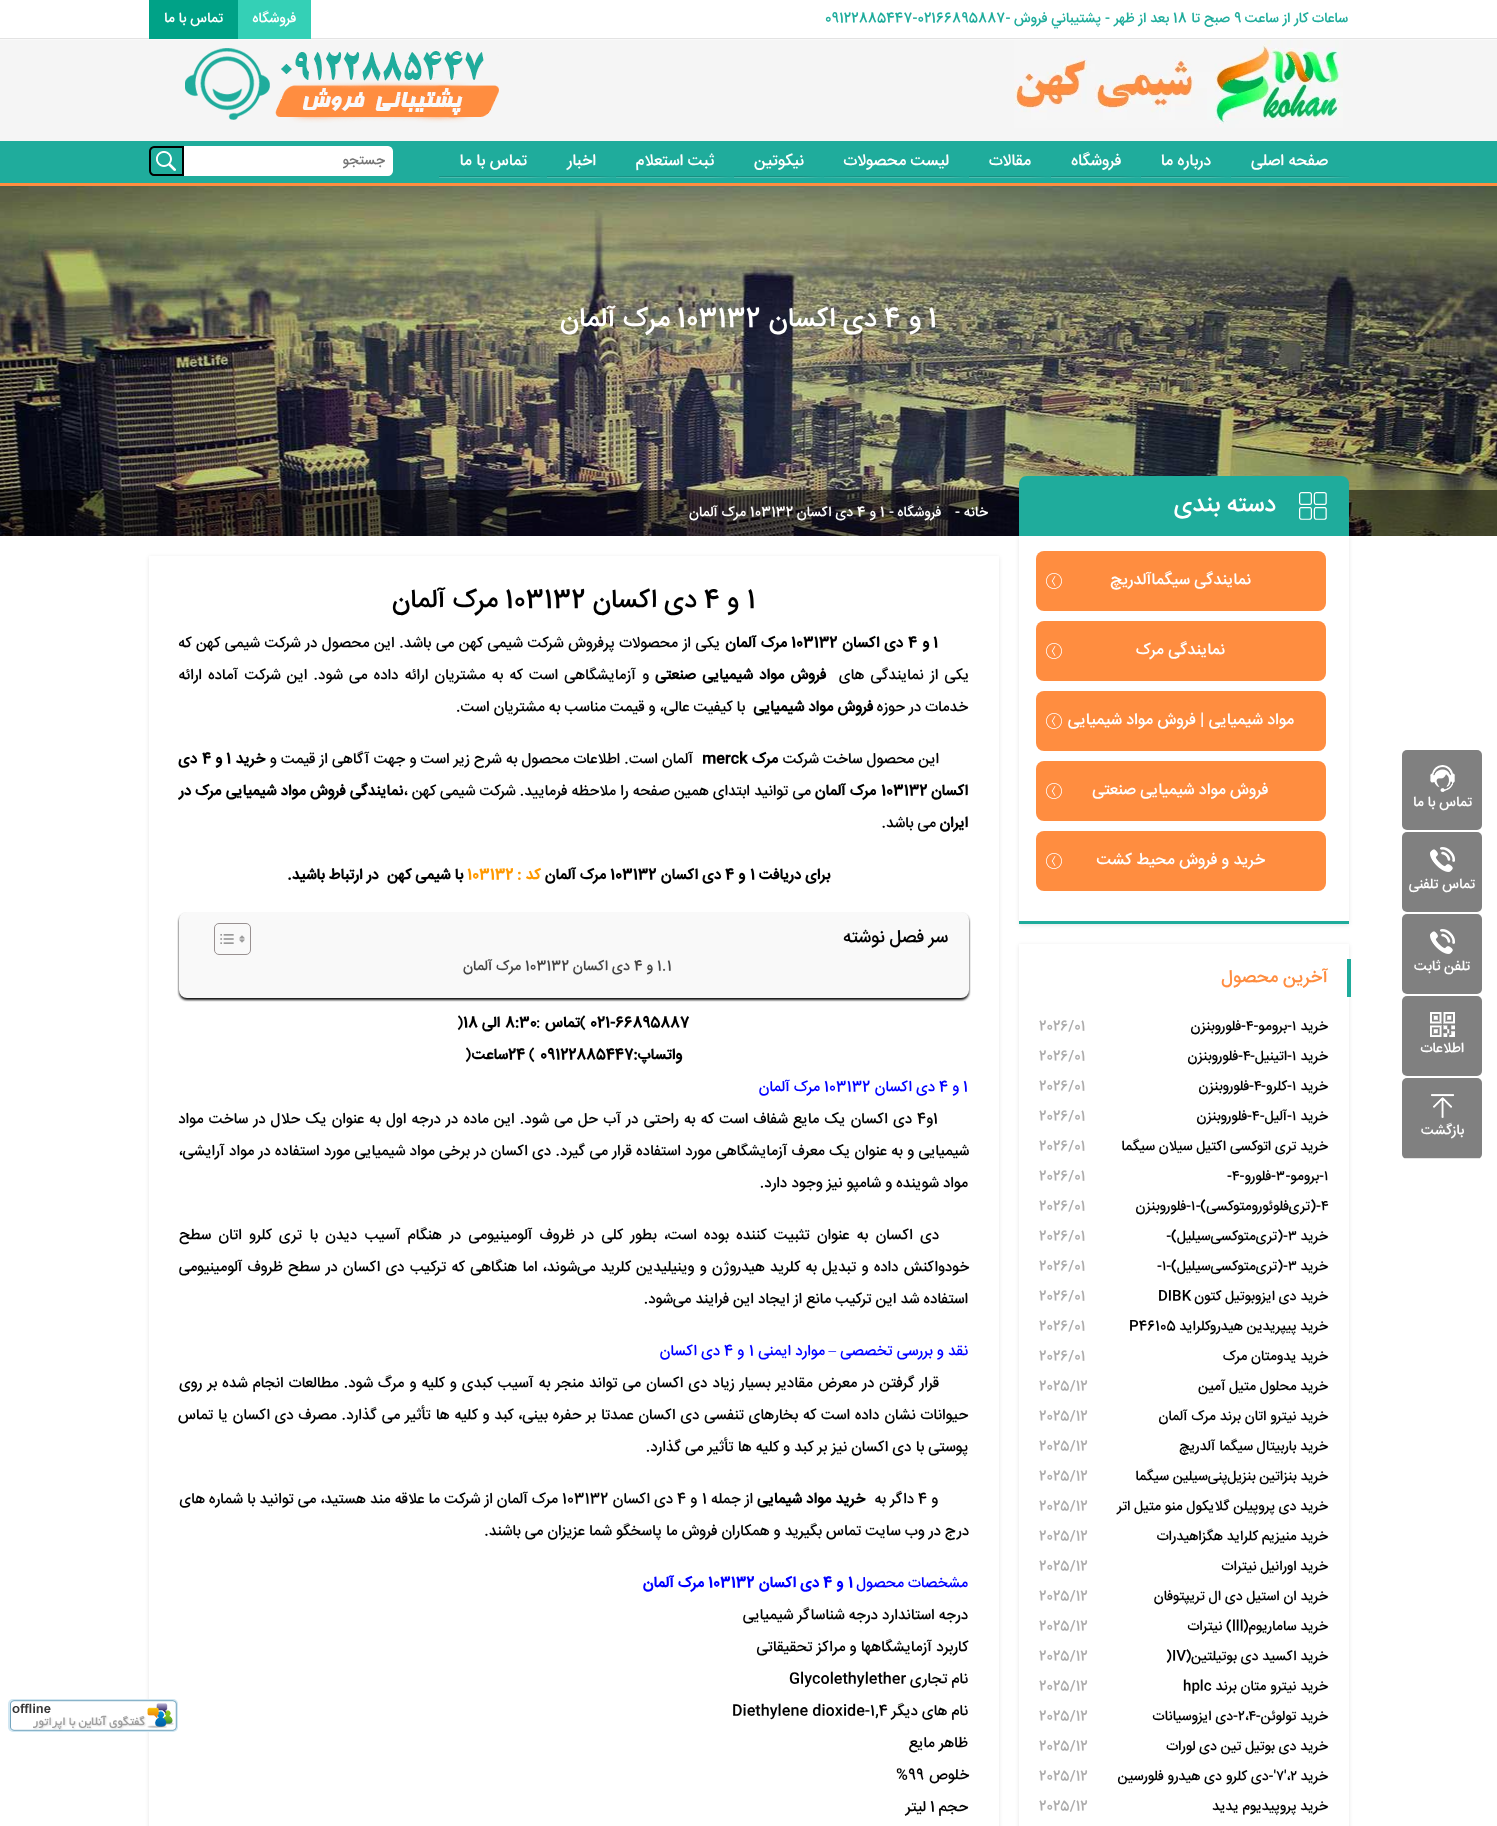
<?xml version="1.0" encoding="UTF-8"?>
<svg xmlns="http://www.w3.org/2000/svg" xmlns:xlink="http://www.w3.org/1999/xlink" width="1497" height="1826">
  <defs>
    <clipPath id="clip1"><path d="M 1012 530 h 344 v 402 h -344 z m 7 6 h 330 v 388 h -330 z" clip-rule="evenodd" /></clipPath>
    <clipPath id="clip2"><path d="M 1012 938 h 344 v 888 h -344 z m 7 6 h 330 v 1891 h -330 z" clip-rule="evenodd" /></clipPath>
    <clipPath id="clip3"><path d="M 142 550 h 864 v 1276 h -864 z m 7 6 h 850 v 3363 h -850 z" clip-rule="evenodd" /></clipPath>
  </defs>
  <rect width="100%" height="100%" fill="#ffffff" />
  <rect y="38" width="1497" height="1" fill="#e3e3e3" />
  <rect x="238" width="73" height="39" fill="#34d0b6" />
  <rect x="149" width="89" height="39" fill="#00a287" />
  <rect y="40" width="1497" height="101" fill="#f5f5f5" />
  <rect y="39" width="1497" height="1" fill="#fafafa" />
  <image x="1014" y="40" width="329" height="88" xlink:href="image1.png" />
  <image x="185" y="48" width="314" height="75" xlink:href="image2.png" />
  <rect y="141" width="1497" height="42" fill="#1fac9c" />
  <rect y="183" width="1497" height="3" fill="#ff8d40" />
  <image x="1231" y="176" width="118" height="2" xlink:href="image3.png" />
  <image x="1141" y="176" width="90" height="2" xlink:href="image4.png" />
  <image x="1051" y="176" width="90" height="2" xlink:href="image5.png" />
  <image x="969" y="176" width="82" height="2" xlink:href="image6.png" />
  <image x="824" y="176" width="145" height="2" xlink:href="image7.png" />
  <image x="734" y="176" width="90" height="2" xlink:href="image8.png" />
  <image x="616" y="176" width="118" height="2" xlink:href="image9.png" />
  <image x="547" y="176" width="69" height="2" xlink:href="image10.png" />
  <image x="439" y="176" width="108" height="2" xlink:href="image11.png" />
  <path d="M 185 147 h 203 c 2 0 4 2 4 4 v 20 c 0 2 -2 4 -4 4 h -203 z" fill="#ffffff" stroke="#ffffff" stroke-width="2" />
  <image x="156" y="151" width="20" height="20" xlink:href="image12.png" />
  <path d="M 154 147 h 29 v 28 h -29 c -2 0 -4 -2 -4 -4 v -20 c 0 -2 2 -4 4 -4 z" fill="none" stroke="#000000" stroke-width="2" />
  <g clip-path="url(#clip1)">
    <rect x="1019" y="537" width="330" height="388" fill="#000000" fill-opacity="0.1" filter="blur(2px)" />
  </g>
  <image x="0" y="186" width="1497" height="350" xlink:href="image13.png" />
  <rect y="490" width="1497" height="46" fill="#000000" fill-opacity="0.5" />
  <path d="M 1027 476 h 314 c 4.5 0 8 3.5 8 8 v 52 h -330 v -52 c 0 -4.5 3.5 -8 8 -8 z" fill="#1fac9c" />
  <image x="1299" y="492" width="28" height="28" xlink:href="image14.png" />
  <rect x="1402" y="750" width="80" height="80" rx="5" fill="#808080" />
  <image x="1430" y="765" width="25" height="27" xlink:href="image15.png" />
  <rect x="1402" y="832" width="80" height="80" rx="5" fill="#808080" />
  <image x="1430" y="847" width="25" height="25" xlink:href="image16.png" />
  <rect x="1402" y="914" width="80" height="80" rx="5" fill="#808080" />
  <image x="1430" y="929" width="25" height="25" xlink:href="image16.png" />
  <rect x="1402" y="996" width="80" height="80" rx="5" fill="#808080" />
  <image x="1430" y="1012" width="25" height="25" xlink:href="image17.png" />
  <rect x="1402" y="1078" width="80" height="81" rx="5" fill="#808080" />
  <rect x="1405" y="1158" width="75" height="1" fill="#e3e3e3" />
  <image x="1431" y="1094" width="23" height="24" xlink:href="image18.png" />
  <rect x="1019" y="921" width="330" height="3" fill="#1fac9c" />
  <rect x="1036" y="551" width="290" height="60" rx="8" fill="#ff8d40" />
  <image x="1046" y="573" width="16" height="16" xlink:href="image19.png" />
  <rect x="1036" y="621" width="290" height="60" rx="8" fill="#ff8d40" />
  <image x="1046" y="643" width="16" height="16" xlink:href="image19.png" />
  <rect x="1036" y="691" width="290" height="60" rx="8" fill="#ff8d40" />
  <image x="1046" y="713" width="16" height="16" xlink:href="image19.png" />
  <rect x="1036" y="761" width="290" height="60" rx="8" fill="#ff8d40" />
  <image x="1046" y="783" width="16" height="16" xlink:href="image19.png" />
  <rect x="1036" y="831" width="290" height="60" rx="8" fill="#ff8d40" />
  <image x="1046" y="853" width="16" height="16" xlink:href="image19.png" />
  <g clip-path="url(#clip2)">
    <rect x="1019" y="945" width="330" height="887" fill="#000000" fill-opacity="0.1" filter="blur(2px)" />
  </g>
  <rect x="1347" y="959" width="4" height="38" fill="#1fac9c" />
  <g clip-path="url(#clip3)">
    <rect x="149" y="557" width="850" height="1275" fill="#000000" fill-opacity="0.1" filter="blur(2px)" />
  </g>
  <rect x="179" y="914" width="790" height="86" rx="8" fill="#0d0d0d" filter="blur(1px)" />
  <rect x="179" y="912" width="790" height="86" rx="8" fill="#f9f9f9" />
  <rect x="214.5" y="923.5" width="36" height="31" rx="4.5" fill="none" stroke="#999191" />
  <image x="239" y="935" width="6" height="8" xlink:href="image20.png" />
  <image x="220" y="934" width="14" height="10" xlink:href="image21.png" />
  <image x="8" y="1699" width="170" height="33" xlink:href="image22.png" />
  <text x="1348" y="22" style="font-family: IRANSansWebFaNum; font-size: 14px; font-weight: 500; direction: rtl; fill: #1fac9c">ساعات کار از ساعت</text>
  <text x="1234" y="22" style="font-family: IRANSansWebFaNum; font-size: 14px; font-weight: 500; fill: #1fac9c">9</text>
  <text x="1230" y="22" style="font-family: IRANSansWebFaNum; font-size: 14px; font-weight: 500; direction: rtl; fill: #1fac9c">صبح تا</text>
  <text x="1173" y="22" style="font-family: IRANSansWebFaNum; font-size: 14px; font-weight: 500; fill: #1fac9c">18</text>
  <text x="1169" y="22" style="font-family: IRANSansWebFaNum; font-size: 14px; font-weight: 500; direction: rtl; fill: #1fac9c">بعد از ظهر</text>
  <text x="1110" y="22" style="font-family: IRANSansWebFaNum; font-size: 14px; font-weight: 500; direction: rtl; fill: #1fac9c">- پشتيباني فروش</text>
  <text x="825" y="22" style="font-family: IRANSansWebFaNum; font-size: 14px; font-weight: 500; fill: #1fac9c">09122885447-02166895887-</text>
  <text x="296" y="22" style="font-family: IRANSansWebFaNum; font-size: 14px; font-weight: 500; direction: rtl; fill: #ffffff">فروشگاه</text>
  <text x="223" y="22" style="font-family: IRANSansWebFaNum; font-size: 14px; font-weight: 500; direction: rtl; fill: #ffffff">تماس با ما</text>
  <text x="1328" y="165" style="font-family: IRANSansWebFaNum; font-size: 16px; font-weight: 500; direction: rtl; fill: #ffffff">صفحه اصلی</text>
  <text x="1211" y="165" style="font-family: IRANSansWebFaNum; font-size: 16px; font-weight: 500; direction: rtl; fill: #ffffff">درباره ما</text>
  <text x="1121" y="165" style="font-family: IRANSansWebFaNum; font-size: 16px; font-weight: 500; direction: rtl; fill: #ffffff">فروشگاه</text>
  <text x="1031" y="165" style="font-family: IRANSansWebFaNum; font-size: 16px; font-weight: 500; direction: rtl; fill: #ffffff">مقالات</text>
  <text x="949" y="165" style="font-family: IRANSansWebFaNum; font-size: 16px; font-weight: 500; direction: rtl; fill: #ffffff">لیست محصولات</text>
  <text x="804" y="165" style="font-family: IRANSansWebFaNum; font-size: 16px; font-weight: 500; direction: rtl; fill: #ffffff">نیکوتین</text>
  <text x="714" y="165" style="font-family: IRANSansWebFaNum; font-size: 16px; font-weight: 500; direction: rtl; fill: #ffffff">ثبت استعلام</text>
  <text x="596" y="165" style="font-family: IRANSansWebFaNum; font-size: 16px; font-weight: 500; direction: rtl; fill: #ffffff">اخبار</text>
  <text x="527" y="165" style="font-family: IRANSansWebFaNum; font-size: 16px; font-weight: 500; direction: rtl; fill: #ffffff">تماس با ما</text>
  <text x="385" y="164" style="font-family: IRANSansWebFaNum; font-size: 14px; font-weight: 500; direction: rtl; fill: #757575">جستجو</text>
  <text x="928" y="326" style="font-family: IRANSansWebFaNum; font-size: 27px; font-weight: 500; fill: #ffffff">1</text>
  <text x="921" y="326" style="font-family: IRANSansWebFaNum; font-size: 27px; font-weight: 500; direction: rtl; fill: #ffffff">و</text>
  <text x="884" y="326" style="font-family: IRANSansWebFaNum; font-size: 27px; font-weight: 500; fill: #ffffff">4</text>
  <text x="877" y="326" style="font-family: IRANSansWebFaNum; font-size: 27px; font-weight: 500; direction: rtl; fill: #ffffff">دی اکسان</text>
  <text x="677" y="326" style="font-family: IRANSansWebFaNum; font-size: 27px; font-weight: 500; fill: #ffffff">103132</text>
  <text x="670" y="326" style="font-family: IRANSansWebFaNum; font-size: 27px; font-weight: 500; direction: rtl; fill: #ffffff">مرک آلمان</text>
  <text x="1276" y="511" style="font-family: IRANSansWebFaNum; font-size: 24px; font-weight: 500; direction: rtl; fill: #ffffff">دسته بندی</text>
  <text x="988" y="516" style="font-family: IRANSansWebFaNum; font-size: 14px; font-weight: 500; direction: rtl; fill: #ffffff">خانه</text>
  <text x="955" y="516" style="font-family: IRANSansWebFaNum; font-size: 14px; font-weight: 500; fill: #ffffff">-</text>
  <text x="941" y="516" style="font-family: IRANSansWebFaNum; font-size: 14px; font-weight: 500; direction: rtl; fill: #ffffff">فروشگاه</text>
  <text x="889" y="516" style="font-family: IRANSansWebFaNum; font-size: 14px; font-weight: 500; fill: #ffffff">-</text>
  <text x="880" y="516" style="font-family: IRANSansWebFaNum; font-size: 14px; font-weight: 500; fill: #ffffff">1</text>
  <text x="876" y="516" style="font-family: IRANSansWebFaNum; font-size: 14px; font-weight: 500; direction: rtl; fill: #ffffff">و</text>
  <text x="857" y="516" style="font-family: IRANSansWebFaNum; font-size: 14px; font-weight: 500; fill: #ffffff">4</text>
  <text x="853" y="516" style="font-family: IRANSansWebFaNum; font-size: 14px; font-weight: 500; direction: rtl; fill: #ffffff">دی اکسان</text>
  <text x="750" y="516" style="font-family: IRANSansWebFaNum; font-size: 14px; font-weight: 500; fill: #ffffff">103132</text>
  <text x="746" y="516" style="font-family: IRANSansWebFaNum; font-size: 14px; font-weight: 500; direction: rtl; fill: #ffffff">مرک آلمان</text>
  <text x="1472" y="806" style="font-family: IRANSansWebFaNum; font-size: 14px; font-weight: 500; direction: rtl; fill: #ffffff">تماس با ما</text>
  <text x="1475" y="888" style="font-family: IRANSansWebFaNum; font-size: 14px; font-weight: 500; direction: rtl; fill: #ffffff">تماس تلفنی</text>
  <text x="1470" y="970" style="font-family: IRANSansWebFaNum; font-size: 14px; font-weight: 500; direction: rtl; fill: #ffffff">تلفن ثابت</text>
  <text x="1464" y="1052" style="font-family: IRANSansWebFaNum; font-size: 14px; font-weight: 500; direction: rtl; fill: #ffffff">اطلاعات</text>
  <text x="1464" y="1134" style="font-family: IRANSansWebFaNum; font-size: 14px; font-weight: 500; direction: rtl; fill: #ffffff">بازگشت</text>
  <text x="1251" y="584" style="font-family: IRANSansWebFaNum; font-size: 16px; font-weight: 500; direction: rtl; fill: #ffffff">نمایندگی سیگماآلدریچ</text>
  <text x="1225" y="654" style="font-family: IRANSansWebFaNum; font-size: 16px; font-weight: 500; direction: rtl; fill: #ffffff">نمایندگی مرک</text>
  <text x="1294" y="724" style="font-family: IRANSansWebFaNum; font-size: 16px; font-weight: 500; direction: rtl; fill: #ffffff">مواد شیمیایی | فروش مواد شیمیایی</text>
  <text x="1268" y="794" style="font-family: IRANSansWebFaNum; font-size: 16px; font-weight: 500; direction: rtl; fill: #ffffff">فروش مواد شیمیایی صنعتی</text>
  <text x="1265" y="864" style="font-family: IRANSansWebFaNum; font-size: 16px; font-weight: 500; direction: rtl; fill: #ffffff">خرید و فروش محیط کشت</text>
  <text x="1328" y="982" style="font-family: IRANSansWebFaNum; font-size: 18px; font-weight: 500; direction: rtl; fill: #ff8d40">آخرین محصول</text>
  <text x="1328" y="1030" style="font-family: IRANSansWebFaNum; font-size: 14px; font-weight: 500; direction: rtl; fill: #000000">خرید</text>
  <text x="1292" y="1030" style="font-family: IRANSansWebFaNum; font-size: 14px; font-weight: 500; fill: #000000">۱</text>
  <text x="1292" y="1030" style="font-family: IRANSansWebFaNum; font-size: 14px; font-weight: 500; direction: rtl; fill: #000000">-برومو-</text>
  <text x="1246" y="1030" style="font-family: IRANSansWebFaNum; font-size: 14px; font-weight: 500; fill: #000000">۴</text>
  <text x="1246" y="1030" style="font-family: IRANSansWebFaNum; font-size: 14px; font-weight: 500; direction: rtl; fill: #000000">-فلوروبنزن</text>
  <text x="1039" y="1030" style="font-family: IRANSansWebFaNum; font-size: 14px; font-weight: 500; fill: #adacac">2026/01</text>
  <text x="1328" y="1060" style="font-family: IRANSansWebFaNum; font-size: 14px; font-weight: 500; direction: rtl; fill: #000000">خرید</text>
  <text x="1292" y="1060" style="font-family: IRANSansWebFaNum; font-size: 14px; font-weight: 500; fill: #000000">۱</text>
  <text x="1292" y="1060" style="font-family: IRANSansWebFaNum; font-size: 14px; font-weight: 500; direction: rtl; fill: #000000">-اتینیل-</text>
  <text x="1243" y="1060" style="font-family: IRANSansWebFaNum; font-size: 14px; font-weight: 500; direction: rtl; fill: #000000">-فلوروبنزن</text>
  <text x="1243" y="1060" style="font-family: IRANSansWebFaNum; font-size: 14px; font-weight: 500; fill: #000000">۴</text>
  <text x="1039" y="1060" style="font-family: IRANSansWebFaNum; font-size: 14px; font-weight: 500; fill: #adacac">2026/01</text>
  <text x="1328" y="1090" style="font-family: IRANSansWebFaNum; font-size: 14px; font-weight: 500; direction: rtl; fill: #000000">خرید</text>
  <text x="1292" y="1090" style="font-family: IRANSansWebFaNum; font-size: 14px; font-weight: 500; fill: #000000">۱</text>
  <text x="1292" y="1090" style="font-family: IRANSansWebFaNum; font-size: 14px; font-weight: 500; direction: rtl; fill: #000000">-کلرو-</text>
  <text x="1254" y="1090" style="font-family: IRANSansWebFaNum; font-size: 14px; font-weight: 500; direction: rtl; fill: #000000">-فلوروبنزن</text>
  <text x="1254" y="1090" style="font-family: IRANSansWebFaNum; font-size: 14px; font-weight: 500; fill: #000000">۴</text>
  <text x="1039" y="1090" style="font-family: IRANSansWebFaNum; font-size: 14px; font-weight: 500; fill: #adacac">2026/01</text>
  <text x="1328" y="1120" style="font-family: IRANSansWebFaNum; font-size: 14px; font-weight: 500; direction: rtl; fill: #000000">خرید</text>
  <text x="1292" y="1120" style="font-family: IRANSansWebFaNum; font-size: 14px; font-weight: 500; fill: #000000">۱</text>
  <text x="1292" y="1120" style="font-family: IRANSansWebFaNum; font-size: 14px; font-weight: 500; direction: rtl; fill: #000000">-آلیل-</text>
  <text x="1252" y="1120" style="font-family: IRANSansWebFaNum; font-size: 14px; font-weight: 500; fill: #000000">۴</text>
  <text x="1252" y="1120" style="font-family: IRANSansWebFaNum; font-size: 14px; font-weight: 500; direction: rtl; fill: #000000">-فلوروبنزن</text>
  <text x="1039" y="1120" style="font-family: IRANSansWebFaNum; font-size: 14px; font-weight: 500; fill: #adacac">2026/01</text>
  <text x="1328" y="1150" style="font-family: IRANSansWebFaNum; font-size: 14px; font-weight: 500; direction: rtl; fill: #000000">خرید تری اتوکسی اکتیل سیلان سیگما</text>
  <text x="1039" y="1150" style="font-family: IRANSansWebFaNum; font-size: 14px; font-weight: 500; fill: #adacac">2026/01</text>
  <text x="1324" y="1180" style="font-family: IRANSansWebFaNum; font-size: 14px; font-weight: 500; fill: #000000">۱</text>
  <text x="1324" y="1180" style="font-family: IRANSansWebFaNum; font-size: 14px; font-weight: 500; direction: rtl; fill: #000000">-برومو-</text>
  <text x="1276" y="1180" style="font-family: IRANSansWebFaNum; font-size: 14px; font-weight: 500; fill: #000000">۳</text>
  <text x="1276" y="1180" style="font-family: IRANSansWebFaNum; font-size: 14px; font-weight: 500; direction: rtl; fill: #000000">-فلورو-</text>
  <text x="1227" y="1180" style="font-family: IRANSansWebFaNum; font-size: 14px; font-weight: 500; fill: #000000">-۴</text>
  <text x="1039" y="1180" style="font-family: IRANSansWebFaNum; font-size: 14px; font-weight: 500; fill: #adacac">2026/01</text>
  <text x="1321" y="1210" style="font-family: IRANSansWebFaNum; font-size: 14px; font-weight: 500; direction: rtl; fill: #000000">-(تری‌فلوئورومتوکسی)-</text>
  <text x="1321" y="1210" style="font-family: IRANSansWebFaNum; font-size: 14px; font-weight: 500; fill: #000000">۴</text>
  <text x="1191" y="1210" style="font-family: IRANSansWebFaNum; font-size: 14px; font-weight: 500; fill: #000000">۱</text>
  <text x="1191" y="1210" style="font-family: IRANSansWebFaNum; font-size: 14px; font-weight: 500; direction: rtl; fill: #000000">-فلوروبنزن</text>
  <text x="1039" y="1210" style="font-family: IRANSansWebFaNum; font-size: 14px; font-weight: 500; fill: #adacac">2026/01</text>
  <text x="1328" y="1240" style="font-family: IRANSansWebFaNum; font-size: 14px; font-weight: 500; direction: rtl; fill: #000000">خرید</text>
  <text x="1288" y="1240" style="font-family: IRANSansWebFaNum; font-size: 14px; font-weight: 500; fill: #000000">۳</text>
  <text x="1288" y="1240" style="font-family: IRANSansWebFaNum; font-size: 14px; font-weight: 500; direction: rtl; fill: #000000">-(تری‌متوکسی‌سیلیل)-</text>
  <text x="1039" y="1240" style="font-family: IRANSansWebFaNum; font-size: 14px; font-weight: 500; fill: #adacac">2026/01</text>
  <text x="1328" y="1270" style="font-family: IRANSansWebFaNum; font-size: 14px; font-weight: 500; direction: rtl; fill: #000000">خرید</text>
  <text x="1288" y="1270" style="font-family: IRANSansWebFaNum; font-size: 14px; font-weight: 500; fill: #000000">۳</text>
  <text x="1288" y="1270" style="font-family: IRANSansWebFaNum; font-size: 14px; font-weight: 500; direction: rtl; fill: #000000">-(تری‌متوکسی‌سیلیل)-</text>
  <text x="1157" y="1270" style="font-family: IRANSansWebFaNum; font-size: 14px; font-weight: 500; fill: #000000">-۱</text>
  <text x="1039" y="1270" style="font-family: IRANSansWebFaNum; font-size: 14px; font-weight: 500; fill: #adacac">2026/01</text>
  <text x="1328" y="1300" style="font-family: IRANSansWebFaNum; font-size: 14px; font-weight: 500; direction: rtl; fill: #000000">خرید دی‌ ایزوبوتیل کتون</text>
  <text x="1158" y="1300" style="font-family: IRANSansWebFaNum; font-size: 14px; font-weight: 500; fill: #000000">DIBK</text>
  <text x="1039" y="1300" style="font-family: IRANSansWebFaNum; font-size: 14px; font-weight: 500; fill: #adacac">2026/01</text>
  <text x="1328" y="1330" style="font-family: IRANSansWebFaNum; font-size: 14px; font-weight: 500; direction: rtl; fill: #000000">خرید پیپریدین هیدروکلراید</text>
  <text x="1129" y="1330" style="font-family: IRANSansWebFaNum; font-size: 14px; font-weight: 500; fill: #000000">P46105</text>
  <text x="1039" y="1330" style="font-family: IRANSansWebFaNum; font-size: 14px; font-weight: 500; fill: #adacac">2026/01</text>
  <text x="1328" y="1360" style="font-family: IRANSansWebFaNum; font-size: 14px; font-weight: 500; direction: rtl; fill: #000000">خرید یدومتان مرک</text>
  <text x="1039" y="1360" style="font-family: IRANSansWebFaNum; font-size: 14px; font-weight: 500; fill: #adacac">2026/01</text>
  <text x="1328" y="1390" style="font-family: IRANSansWebFaNum; font-size: 14px; font-weight: 500; direction: rtl; fill: #000000">خرید محلول متیل آمین</text>
  <text x="1039" y="1390" style="font-family: IRANSansWebFaNum; font-size: 14px; font-weight: 500; fill: #adacac">2025/12</text>
  <text x="1328" y="1420" style="font-family: IRANSansWebFaNum; font-size: 14px; font-weight: 500; direction: rtl; fill: #000000">خرید نیترو اتان برند مرک آلمان</text>
  <text x="1039" y="1420" style="font-family: IRANSansWebFaNum; font-size: 14px; font-weight: 500; fill: #adacac">2025/12</text>
  <text x="1328" y="1450" style="font-family: IRANSansWebFaNum; font-size: 14px; font-weight: 500; direction: rtl; fill: #000000">خرید باربیتال سیگما آلدریچ</text>
  <text x="1039" y="1450" style="font-family: IRANSansWebFaNum; font-size: 14px; font-weight: 500; fill: #adacac">2025/12</text>
  <text x="1328" y="1480" style="font-family: IRANSansWebFaNum; font-size: 14px; font-weight: 500; direction: rtl; fill: #000000">خرید بنزاتین بنزیل‌پنی‌سیلین سیگما</text>
  <text x="1039" y="1480" style="font-family: IRANSansWebFaNum; font-size: 14px; font-weight: 500; fill: #adacac">2025/12</text>
  <text x="1328" y="1510" style="font-family: IRANSansWebFaNum; font-size: 14px; font-weight: 500; direction: rtl; fill: #000000">خرید دی پروپیلن گلایکول منو متیل اتر</text>
  <text x="1039" y="1510" style="font-family: IRANSansWebFaNum; font-size: 14px; font-weight: 500; fill: #adacac">2025/12</text>
  <text x="1328" y="1540" style="font-family: IRANSansWebFaNum; font-size: 14px; font-weight: 500; direction: rtl; fill: #000000">خرید منیزیم کلراید هگزاهیدرات</text>
  <text x="1039" y="1540" style="font-family: IRANSansWebFaNum; font-size: 14px; font-weight: 500; fill: #adacac">2025/12</text>
  <text x="1328" y="1570" style="font-family: IRANSansWebFaNum; font-size: 14px; font-weight: 500; direction: rtl; fill: #000000">خرید اورانیل نیترات</text>
  <text x="1039" y="1570" style="font-family: IRANSansWebFaNum; font-size: 14px; font-weight: 500; fill: #adacac">2025/12</text>
  <text x="1328" y="1600" style="font-family: IRANSansWebFaNum; font-size: 14px; font-weight: 500; direction: rtl; fill: #000000">خرید ان استیل دی ال تریپتوفان</text>
  <text x="1039" y="1600" style="font-family: IRANSansWebFaNum; font-size: 14px; font-weight: 500; fill: #adacac">2025/12</text>
  <text x="1328" y="1630" style="font-family: IRANSansWebFaNum; font-size: 14px; font-weight: 500; direction: rtl; fill: #000000">خرید ساماریوم(</text>
  <text x="1232" y="1630" style="font-family: IRANSansWebFaNum; font-size: 14px; font-weight: 500; fill: #000000">lll</text>
  <text x="1232" y="1630" style="font-family: IRANSansWebFaNum; font-size: 14px; font-weight: 500; direction: rtl; fill: #000000">) نیترات</text>
  <text x="1039" y="1630" style="font-family: IRANSansWebFaNum; font-size: 14px; font-weight: 500; fill: #adacac">2025/12</text>
  <text x="1328" y="1660" style="font-family: IRANSansWebFaNum; font-size: 14px; font-weight: 500; direction: rtl; fill: #000000">خرید اکسید دی بوتیلتین(</text>
  <text x="1166" y="1660" style="font-family: IRANSansWebFaNum; font-size: 14px; font-weight: 500; fill: #000000">)IV</text>
  <text x="1039" y="1660" style="font-family: IRANSansWebFaNum; font-size: 14px; font-weight: 500; fill: #adacac">2025/12</text>
  <text x="1328" y="1690" style="font-family: IRANSansWebFaNum; font-size: 14px; font-weight: 500; direction: rtl; fill: #000000">خرید نیترو متان برند</text>
  <text x="1183" y="1690" style="font-family: IRANSansWebFaNum; font-size: 14px; font-weight: 500; fill: #000000">hplc</text>
  <text x="1039" y="1690" style="font-family: IRANSansWebFaNum; font-size: 14px; font-weight: 500; fill: #adacac">2025/12</text>
  <text x="1328" y="1720" style="font-family: IRANSansWebFaNum; font-size: 14px; font-weight: 500; direction: rtl; fill: #000000">خرید تولوئن-</text>
  <text x="1238" y="1720" style="font-family: IRANSansWebFaNum; font-size: 14px; font-weight: 500; fill: #000000">۲،۴</text>
  <text x="1238" y="1720" style="font-family: IRANSansWebFaNum; font-size: 14px; font-weight: 500; direction: rtl; fill: #000000">-دی ایزوسیانات</text>
  <text x="1039" y="1720" style="font-family: IRANSansWebFaNum; font-size: 14px; font-weight: 500; fill: #adacac">2025/12</text>
  <text x="1328" y="1750" style="font-family: IRANSansWebFaNum; font-size: 14px; font-weight: 500; direction: rtl; fill: #000000">خرید دی بوتیل تین دی لورات</text>
  <text x="1039" y="1750" style="font-family: IRANSansWebFaNum; font-size: 14px; font-weight: 500; fill: #adacac">2025/12</text>
  <text x="1328" y="1780" style="font-family: IRANSansWebFaNum; font-size: 14px; font-weight: 500; direction: rtl; fill: #000000">خرید</text>
  <text x="1276" y="1780" style="font-family: IRANSansWebFaNum; font-size: 14px; font-weight: 500; fill: #000000">۷′،۲</text>
  <text x="1276" y="1780" style="font-family: IRANSansWebFaNum; font-size: 14px; font-weight: 500; direction: rtl; fill: #000000">′-دی کلرو دی هیدرو فلورسین</text>
  <text x="1039" y="1780" style="font-family: IRANSansWebFaNum; font-size: 14px; font-weight: 500; fill: #adacac">2025/12</text>
  <text x="1328" y="1810" style="font-family: IRANSansWebFaNum; font-size: 14px; font-weight: 500; direction: rtl; fill: #000000">خرید پروپیدیوم یدید</text>
  <text x="1039" y="1810" style="font-family: IRANSansWebFaNum; font-size: 14px; font-weight: 500; fill: #adacac">2025/12</text>
  <text x="747" y="607" style="font-family: IRANSansWebFaNum; font-size: 26px; font-weight: 500; fill: #000000">1</text>
  <text x="739" y="607" style="font-family: IRANSansWebFaNum; font-size: 26px; font-weight: 500; direction: rtl; fill: #000000">و</text>
  <text x="704" y="607" style="font-family: IRANSansWebFaNum; font-size: 26px; font-weight: 500; fill: #000000">4</text>
  <text x="697" y="607" style="font-family: IRANSansWebFaNum; font-size: 26px; font-weight: 500; direction: rtl; fill: #000000">دی اکسان</text>
  <text x="505" y="607" style="font-family: IRANSansWebFaNum; font-size: 26px; font-weight: 500; fill: #000000">103132</text>
  <text x="498" y="607" style="font-family: IRANSansWebFaNum; font-size: 26px; font-weight: 500; direction: rtl; fill: #000000">مرک آلمان</text>
  <text x="933" y="647" style="font-family: IRANSansWebFaNum; font-size: 15px; font-weight: bold; fill: #000000">1</text>
  <text x="929" y="647" style="font-family: IRANSansWebFaNum; font-size: 15px; font-weight: bold; direction: rtl; fill: #000000">و</text>
  <text x="908" y="647" style="font-family: IRANSansWebFaNum; font-size: 15px; font-weight: bold; fill: #000000">4</text>
  <text x="903" y="647" word-spacing="0.5" style="font-family: IRANSansWebFaNum; font-size: 15px; font-weight: bold; direction: rtl; fill: #000000">دی اکسان</text>
  <text x="791" y="647" style="font-family: IRANSansWebFaNum; font-size: 15px; font-weight: bold; fill: #000000">103132</text>
  <text x="787" y="647" word-spacing="0.5" style="font-family: IRANSansWebFaNum; font-size: 15px; font-weight: bold; direction: rtl; fill: #000000">مرک آلمان</text>
  <text x="720" y="647" word-spacing="0.5" style="font-family: IRANSansWebFaNum; font-size: 15px; font-weight: 500; direction: rtl; fill: #000000">یکی از محصولات پرفروش شرکت شیمی کهن می باشد. این محصول در شرکت شیمی کهن که</text>
  <text x="969" y="679" word-spacing="2.1" style="font-family: IRANSansWebFaNum; font-size: 15px; font-weight: 500; direction: rtl; fill: #000000">یکی از نمایندگی های</text>
  <text x="826" y="679" word-spacing="2.1" style="font-family: IRANSansWebFaNum; font-size: 15px; font-weight: bold; direction: rtl; fill: #000000">فروش مواد شیمیایی صنعتی</text>
  <text x="649" y="679" word-spacing="2.1" style="font-family: IRANSansWebFaNum; font-size: 15px; font-weight: 500; direction: rtl; fill: #000000">و آزمایشگاهی است که به مشتریان ارائه داده می شود. این شرکت آماده ارائه</text>
  <text x="968" y="711" style="font-family: IRANSansWebFaNum; font-size: 15px; font-weight: 500; direction: rtl; fill: #000000">خدمات در حوزه</text>
  <text x="873" y="711" style="font-family: IRANSansWebFaNum; font-size: 15px; font-weight: bold; direction: rtl; fill: #000000">فروش مواد شیمیایی</text>
  <text x="745" y="711" style="font-family: IRANSansWebFaNum; font-size: 15px; font-weight: 500; direction: rtl; fill: #000000">با کیفیت عالی، و قیمت مناسب به مشتریان است.</text>
  <text x="939" y="763" word-spacing="0.1" style="font-family: IRANSansWebFaNum; font-size: 15px; font-weight: 500; direction: rtl; fill: #000000">این محصول ساخت شرکت</text>
  <text x="778" y="763" style="font-family: IRANSansWebFaNum; font-size: 15px; font-weight: bold; direction: rtl; fill: #000000">مرک</text>
  <text x="702" y="763" style="font-family: IRANSansWebFaNum; font-size: 15px; font-weight: bold; fill: #000000">merck</text>
  <text x="693" y="763" word-spacing="0.1" style="font-family: IRANSansWebFaNum; font-size: 15px; font-weight: 500; direction: rtl; fill: #000000">آلمان است. اطلاعات محصول به شرح زیر است و جهت آگاهی از قیمت و</text>
  <text x="265" y="763" style="font-family: IRANSansWebFaNum; font-size: 15px; font-weight: bold; direction: rtl; fill: #000000">خرید</text>
  <text x="226" y="763" style="font-family: IRANSansWebFaNum; font-size: 15px; font-weight: bold; fill: #000000">1</text>
  <text x="222" y="763" style="font-family: IRANSansWebFaNum; font-size: 15px; font-weight: bold; direction: rtl; fill: #000000">و</text>
  <text x="202" y="763" style="font-family: IRANSansWebFaNum; font-size: 15px; font-weight: bold; fill: #000000">4</text>
  <text x="197" y="763" style="font-family: IRANSansWebFaNum; font-size: 15px; font-weight: bold; direction: rtl; fill: #000000">دی</text>
  <text x="968" y="795" style="font-family: IRANSansWebFaNum; font-size: 15px; font-weight: bold; direction: rtl; fill: #000000">اکسان</text>
  <text x="881" y="795" style="font-family: IRANSansWebFaNum; font-size: 15px; font-weight: bold; fill: #000000">103132</text>
  <text x="876" y="795" word-spacing="0.1" style="font-family: IRANSansWebFaNum; font-size: 15px; font-weight: bold; direction: rtl; fill: #000000">مرک آلمان</text>
  <text x="811" y="795" word-spacing="0.1" style="font-family: IRANSansWebFaNum; font-size: 15px; font-weight: 500; direction: rtl; fill: #000000">می توانید ابتدای همین صفحه را ملاحظه فرمایید. شرکت شیمی کهن ،</text>
  <text x="403" y="795" word-spacing="0.1" style="font-family: IRANSansWebFaNum; font-size: 15px; font-weight: bold; direction: rtl; fill: #000000">نمایندگی فروش مواد شیمیایی مرک در</text>
  <text x="968" y="827" style="font-family: IRANSansWebFaNum; font-size: 15px; font-weight: bold; direction: rtl; fill: #000000">ایران</text>
  <text x="936" y="827" style="font-family: IRANSansWebFaNum; font-size: 15px; font-weight: 500; direction: rtl; fill: #000000">می باشد.</text>
  <text x="830" y="879" style="font-family: IRANSansWebFaNum; font-size: 15px; font-weight: bold; direction: rtl; fill: #000000">برای دریافت</text>
  <text x="750" y="879" style="font-family: IRANSansWebFaNum; font-size: 15px; font-weight: bold; fill: #000000">1</text>
  <text x="745" y="879" style="font-family: IRANSansWebFaNum; font-size: 15px; font-weight: bold; direction: rtl; fill: #000000">و</text>
  <text x="725" y="879" style="font-family: IRANSansWebFaNum; font-size: 15px; font-weight: bold; fill: #000000">4</text>
  <text x="721" y="879" style="font-family: IRANSansWebFaNum; font-size: 15px; font-weight: bold; direction: rtl; fill: #000000">دی اکسان</text>
  <text x="610" y="879" style="font-family: IRANSansWebFaNum; font-size: 15px; font-weight: bold; fill: #000000">103132</text>
  <text x="606" y="879" style="font-family: IRANSansWebFaNum; font-size: 15px; font-weight: bold; direction: rtl; fill: #000000">مرک آلمان</text>
  <text x="540" y="879" style="font-family: IRANSansWebFaNum; font-size: 15px; font-weight: bold; direction: rtl; fill: #ff9900">کد :</text>
  <text x="467" y="879" style="font-family: IRANSansWebFaNum; font-size: 15px; font-weight: bold; fill: #ff9900">103132</text>
  <text x="463" y="879" style="font-family: IRANSansWebFaNum; font-size: 15px; font-weight: bold; direction: rtl; fill: #000000" xml:space="preserve">با شیمی کهن  در ارتباط باشید.</text>
  <text x="948" y="942" style="font-family: IRANSansWebFaNum; font-size: 18px; font-weight: 500; direction: rtl; fill: #000000">سر فصل نوشته</text>
  <text x="667" y="970" style="font-family: IRANSansWebFaNum; font-size: 14.25px; font-weight: 500; fill: #444444">1</text>
  <text x="662" y="970" style="font-family: IRANSansWebFaNum; font-size: 14.25px; font-weight: 500; fill: #444444">.</text>
  <text x="657" y="970" style="font-family: IRANSansWebFaNum; font-size: 14.25px; font-weight: 500; fill: #444444">1</text>
  <text x="653" y="970" style="font-family: IRANSansWebFaNum; font-size: 14.25px; font-weight: 500; direction: rtl; fill: #444444">و</text>
  <text x="634" y="970" style="font-family: IRANSansWebFaNum; font-size: 14.25px; font-weight: 500; fill: #444444">4</text>
  <text x="630" y="970" style="font-family: IRANSansWebFaNum; font-size: 14.25px; font-weight: 500; direction: rtl; fill: #444444">دی اکسان</text>
  <text x="525" y="970" style="font-family: IRANSansWebFaNum; font-size: 14.25px; font-weight: 500; fill: #444444">103132</text>
  <text x="521" y="970" style="font-family: IRANSansWebFaNum; font-size: 14.25px; font-weight: 500; direction: rtl; fill: #444444">مرک آلمان</text>
  <text x="590" y="1027" style="font-family: IRANSansWebFaNum; font-size: 15px; font-weight: bold; fill: #000000">021-66895887</text>
  <text x="580" y="1027" style="font-family: IRANSansWebFaNum; font-size: 15px; font-weight: 500; fill: #000000">(</text>
  <text x="580" y="1027" style="font-family: IRANSansWebFaNum; font-size: 15px; font-weight: bold; direction: rtl; fill: #000000">تماس</text>
  <text x="536" y="1027" style="font-family: IRANSansWebFaNum; font-size: 15px; font-weight: 500; fill: #000000">:</text>
  <text x="505" y="1027" style="font-family: IRANSansWebFaNum; font-size: 15px; font-weight: bold; fill: #000000">8:30</text>
  <text x="500" y="1027" style="font-family: IRANSansWebFaNum; font-size: 15px; font-weight: bold; direction: rtl; fill: #000000">الی</text>
  <text x="463" y="1027" style="font-family: IRANSansWebFaNum; font-size: 15px; font-weight: bold; fill: #000000">18</text>
  <text x="457" y="1027" style="font-family: IRANSansWebFaNum; font-size: 15px; font-weight: 500; fill: #000000">)</text>
  <text x="682" y="1059" style="font-family: IRANSansWebFaNum; font-size: 15px; font-weight: bold; direction: rtl; fill: #000000">واتساپ:</text>
  <text x="540" y="1059" style="font-family: IRANSansWebFaNum; font-size: 15px; font-weight: bold; fill: #000000">09122885447</text>
  <text x="529" y="1059" style="font-family: IRANSansWebFaNum; font-size: 15px; font-weight: 500; fill: #000000">(</text>
  <text x="508" y="1059" style="font-family: IRANSansWebFaNum; font-size: 15px; font-weight: bold; direction: rtl; fill: #000000">ساعت</text>
  <text x="508" y="1059" style="font-family: IRANSansWebFaNum; font-size: 15px; font-weight: bold; fill: #000000">24</text>
  <text x="465" y="1059" style="font-family: IRANSansWebFaNum; font-size: 15px; font-weight: 500; fill: #000000">)</text>
  <text x="963" y="1091" style="font-family: IRANSansWebFaNum; font-size: 15px; font-weight: 500; fill: #0000ff">1</text>
  <text x="959" y="1091" style="font-family: IRANSansWebFaNum; font-size: 15px; font-weight: 500; direction: rtl; fill: #0000ff">و</text>
  <text x="939" y="1091" style="font-family: IRANSansWebFaNum; font-size: 15px; font-weight: 500; fill: #0000ff">4</text>
  <text x="935" y="1091" style="font-family: IRANSansWebFaNum; font-size: 15px; font-weight: 500; direction: rtl; fill: #0000ff">دی اکسان</text>
  <text x="824" y="1091" style="font-family: IRANSansWebFaNum; font-size: 15px; font-weight: 500; fill: #0000ff">103132</text>
  <text x="820" y="1091" style="font-family: IRANSansWebFaNum; font-size: 15px; font-weight: 500; direction: rtl; fill: #0000ff">مرک آلمان</text>
  <text x="933" y="1123" style="font-family: IRANSansWebFaNum; font-size: 15px; font-weight: 500; fill: #000000">1</text>
  <text x="933" y="1123" style="font-family: IRANSansWebFaNum; font-size: 15px; font-weight: 500; direction: rtl; fill: #000000">و</text>
  <text x="917" y="1123" style="font-family: IRANSansWebFaNum; font-size: 15px; font-weight: 500; fill: #000000">4</text>
  <text x="912" y="1123" word-spacing="1.1" style="font-family: IRANSansWebFaNum; font-size: 15px; font-weight: 500; direction: rtl; fill: #000000">دی اکسان یک مایع شفاف است که به راحتی در آب حل می شود. این ماده در درجه اول به عنوان یک حلال در ساخت مواد</text>
  <text x="969" y="1155" word-spacing="0.2" style="font-family: IRANSansWebFaNum; font-size: 15px; font-weight: 500; direction: rtl; fill: #000000">شیمیایی و به عنوان یک معرف آزمایشگاهی مورد استفاده قرار می گیرد. دی اکسان در برخی مواد شیمیایی مورد استفاده در مواد آرایشی،</text>
  <text x="968" y="1187" style="font-family: IRANSansWebFaNum; font-size: 15px; font-weight: 500; direction: rtl; fill: #000000">مواد شوینده و شامپو نیز وجود دارد.</text>
  <text x="939" y="1239" word-spacing="3.2" style="font-family: IRANSansWebFaNum; font-size: 15px; font-weight: 500; direction: rtl; fill: #000000">دی اکسان به عنوان تثبیت کننده بوده است، بطور کلی در ظروف آلومینیومی در هنگام آسیب دیدن با تری کلرو اتان سطح</text>
  <text x="969" y="1271" word-spacing="1.2" style="font-family: IRANSansWebFaNum; font-size: 15px; font-weight: 500; direction: rtl; fill: #000000">خودواکنش داده و تبدیل به کلرید هیدروژن و وینیلیدین کلرید می‌شوند، اما هنگاهی که ترکیب دی اکسان در سطح ظروف آلومینیومی</text>
  <text x="968" y="1303" style="font-family: IRANSansWebFaNum; font-size: 15px; font-weight: 500; direction: rtl; fill: #000000">استفاده شد این ترکیب مانع از ایجاد این فرایند می‌شود.</text>
  <text x="968" y="1355" style="font-family: IRANSansWebFaNum; font-size: 15px; font-weight: 500; direction: rtl; fill: #0000ff">نقد و بررسی تخصصی</text>
  <text x="836" y="1355" style="font-family: Liberation Serif; font-size: 15px; direction: rtl; fill: #0000ff">–</text>
  <text x="825" y="1355" style="font-family: IRANSansWebFaNum; font-size: 15px; font-weight: 500; direction: rtl; fill: #0000ff">موارد ایمنی</text>
  <text x="749" y="1355" style="font-family: IRANSansWebFaNum; font-size: 15px; font-weight: 500; fill: #0000ff">1</text>
  <text x="744" y="1355" style="font-family: IRANSansWebFaNum; font-size: 15px; font-weight: 500; direction: rtl; fill: #0000ff">و</text>
  <text x="724" y="1355" style="font-family: IRANSansWebFaNum; font-size: 15px; font-weight: 500; fill: #0000ff">4</text>
  <text x="720" y="1355" style="font-family: IRANSansWebFaNum; font-size: 15px; font-weight: 500; direction: rtl; fill: #0000ff">دی اکسان</text>
  <text x="939" y="1387" word-spacing="1" style="font-family: IRANSansWebFaNum; font-size: 15px; font-weight: 500; direction: rtl; fill: #000000">قرار گرفتن در معرض مقادیر بسیار زیاد دی اکسان می تواند منجر به آسیب کبدی و کلیه و مرگ شود. مطالعات انجام شده بر روی</text>
  <text x="968" y="1419" word-spacing="0.7" style="font-family: IRANSansWebFaNum; font-size: 15px; font-weight: 500; direction: rtl; fill: #000000">حیوانات نشان داده است که بخارهای تنفسی دی اکسان عمدتا بر حفره بینی، کبد و کلیه ها تأثیر می گذارد. مصرف دی اکسان یا تماس</text>
  <text x="968" y="1451" style="font-family: IRANSansWebFaNum; font-size: 15px; font-weight: 500; direction: rtl; fill: #000000">پوستی با دی اکسان نیز بر کبد و کلیه ها تأثیر می گذارد.</text>
  <text x="938" y="1503" style="font-family: IRANSansWebFaNum; font-size: 15px; font-weight: 500; direction: rtl; fill: #000000">و</text>
  <text x="918" y="1503" style="font-family: IRANSansWebFaNum; font-size: 15px; font-weight: 500; fill: #000000">4</text>
  <text x="914" y="1503" style="font-family: IRANSansWebFaNum; font-size: 15px; font-weight: 500; direction: rtl; fill: #000000">داگر به</text>
  <text x="865" y="1503" style="font-family: IRANSansWebFaNum; font-size: 15px; font-weight: bold; direction: rtl; fill: #000000">خرید مواد شیمایی</text>
  <text x="753" y="1503" style="font-family: IRANSansWebFaNum; font-size: 15px; font-weight: 500; direction: rtl; fill: #000000">از جمله</text>
  <text x="702" y="1503" style="font-family: IRANSansWebFaNum; font-size: 15px; font-weight: 500; fill: #000000">1</text>
  <text x="697" y="1503" style="font-family: IRANSansWebFaNum; font-size: 15px; font-weight: 500; direction: rtl; fill: #000000">و</text>
  <text x="677" y="1503" style="font-family: IRANSansWebFaNum; font-size: 15px; font-weight: 500; fill: #000000">4</text>
  <text x="673" y="1503" style="font-family: IRANSansWebFaNum; font-size: 15px; font-weight: 500; direction: rtl; fill: #000000">دی اکسان</text>
  <text x="562" y="1503" style="font-family: IRANSansWebFaNum; font-size: 15px; font-weight: 500; fill: #000000">103132</text>
  <text x="558" y="1503" style="font-family: IRANSansWebFaNum; font-size: 15px; font-weight: 500; direction: rtl; fill: #000000">مرک آلمان از شرکت ما علاقه مند هستید، می توانید با شماره های</text>
  <text x="969" y="1535" style="font-family: IRANSansWebFaNum; font-size: 15px; font-weight: 500; direction: rtl; fill: #000000">درج در وب سایت تماس بگیرید و همکاران فروش ما پاسخگو شما عزیزان می باشند.</text>
  <text x="968" y="1587" style="font-family: IRANSansWebFaNum; font-size: 15px; font-weight: 500; direction: rtl; fill: #0000ff">مشخصات محصول</text>
  <text x="848" y="1587" style="font-family: IRANSansWebFaNum; font-size: 15px; font-weight: bold; fill: #0000ff">1</text>
  <text x="843" y="1587" style="font-family: IRANSansWebFaNum; font-size: 15px; font-weight: bold; direction: rtl; fill: #0000ff">و</text>
  <text x="823" y="1587" style="font-family: IRANSansWebFaNum; font-size: 15px; font-weight: bold; fill: #0000ff">4</text>
  <text x="819" y="1587" style="font-family: IRANSansWebFaNum; font-size: 15px; font-weight: bold; direction: rtl; fill: #0000ff">دی اکسان</text>
  <text x="708" y="1587" style="font-family: IRANSansWebFaNum; font-size: 15px; font-weight: bold; fill: #0000ff">103132</text>
  <text x="704" y="1587" style="font-family: IRANSansWebFaNum; font-size: 15px; font-weight: bold; direction: rtl; fill: #0000ff">مرک آلمان</text>
  <text x="968" y="1619" style="font-family: IRANSansWebFaNum; font-size: 15px; font-weight: 500; direction: rtl; fill: #000000">درجه استاندارد درجه شناساگر شیمیایی</text>
  <text x="968" y="1651" style="font-family: IRANSansWebFaNum; font-size: 15px; font-weight: 500; direction: rtl; fill: #000000">کاربرد آزمایشگاهها و مراکز تحقیقاتی</text>
  <text x="968" y="1683" style="font-family: IRANSansWebFaNum; font-size: 15px; font-weight: 500; direction: rtl; fill: #000000">نام تجاری</text>
  <text x="789" y="1683" style="font-family: IRANSansWebFaNum; font-size: 15px; font-weight: 500; fill: #000000">Glycolethylether</text>
  <text x="968" y="1715" style="font-family: IRANSansWebFaNum; font-size: 15px; font-weight: 500; direction: rtl; fill: #000000">نام های دیگر</text>
  <text x="732" y="1715" style="font-family: IRANSansWebFaNum; font-size: 15px; font-weight: 500; fill: #000000">Diethylene dioxide-1,4</text>
  <text x="968" y="1747" style="font-family: IRANSansWebFaNum; font-size: 15px; font-weight: 500; direction: rtl; fill: #000000">ظاهر مایع</text>
  <text x="969" y="1779" style="font-family: IRANSansWebFaNum; font-size: 15px; font-weight: 500; direction: rtl; fill: #000000">خلوص</text>
  <text x="896" y="1779" style="font-family: IRANSansWebFaNum; font-size: 15px; font-weight: 500; fill: #000000">%99</text>
  <text x="968" y="1811" style="font-family: IRANSansWebFaNum; font-size: 15px; font-weight: 500; direction: rtl; fill: #000000">حجم</text>
  <text x="930" y="1811" style="font-family: IRANSansWebFaNum; font-size: 15px; font-weight: 500; fill: #000000">1</text>
  <text x="926" y="1811" style="font-family: IRANSansWebFaNum; font-size: 15px; font-weight: 500; direction: rtl; fill: #000000">لیتر</text>
</svg>
